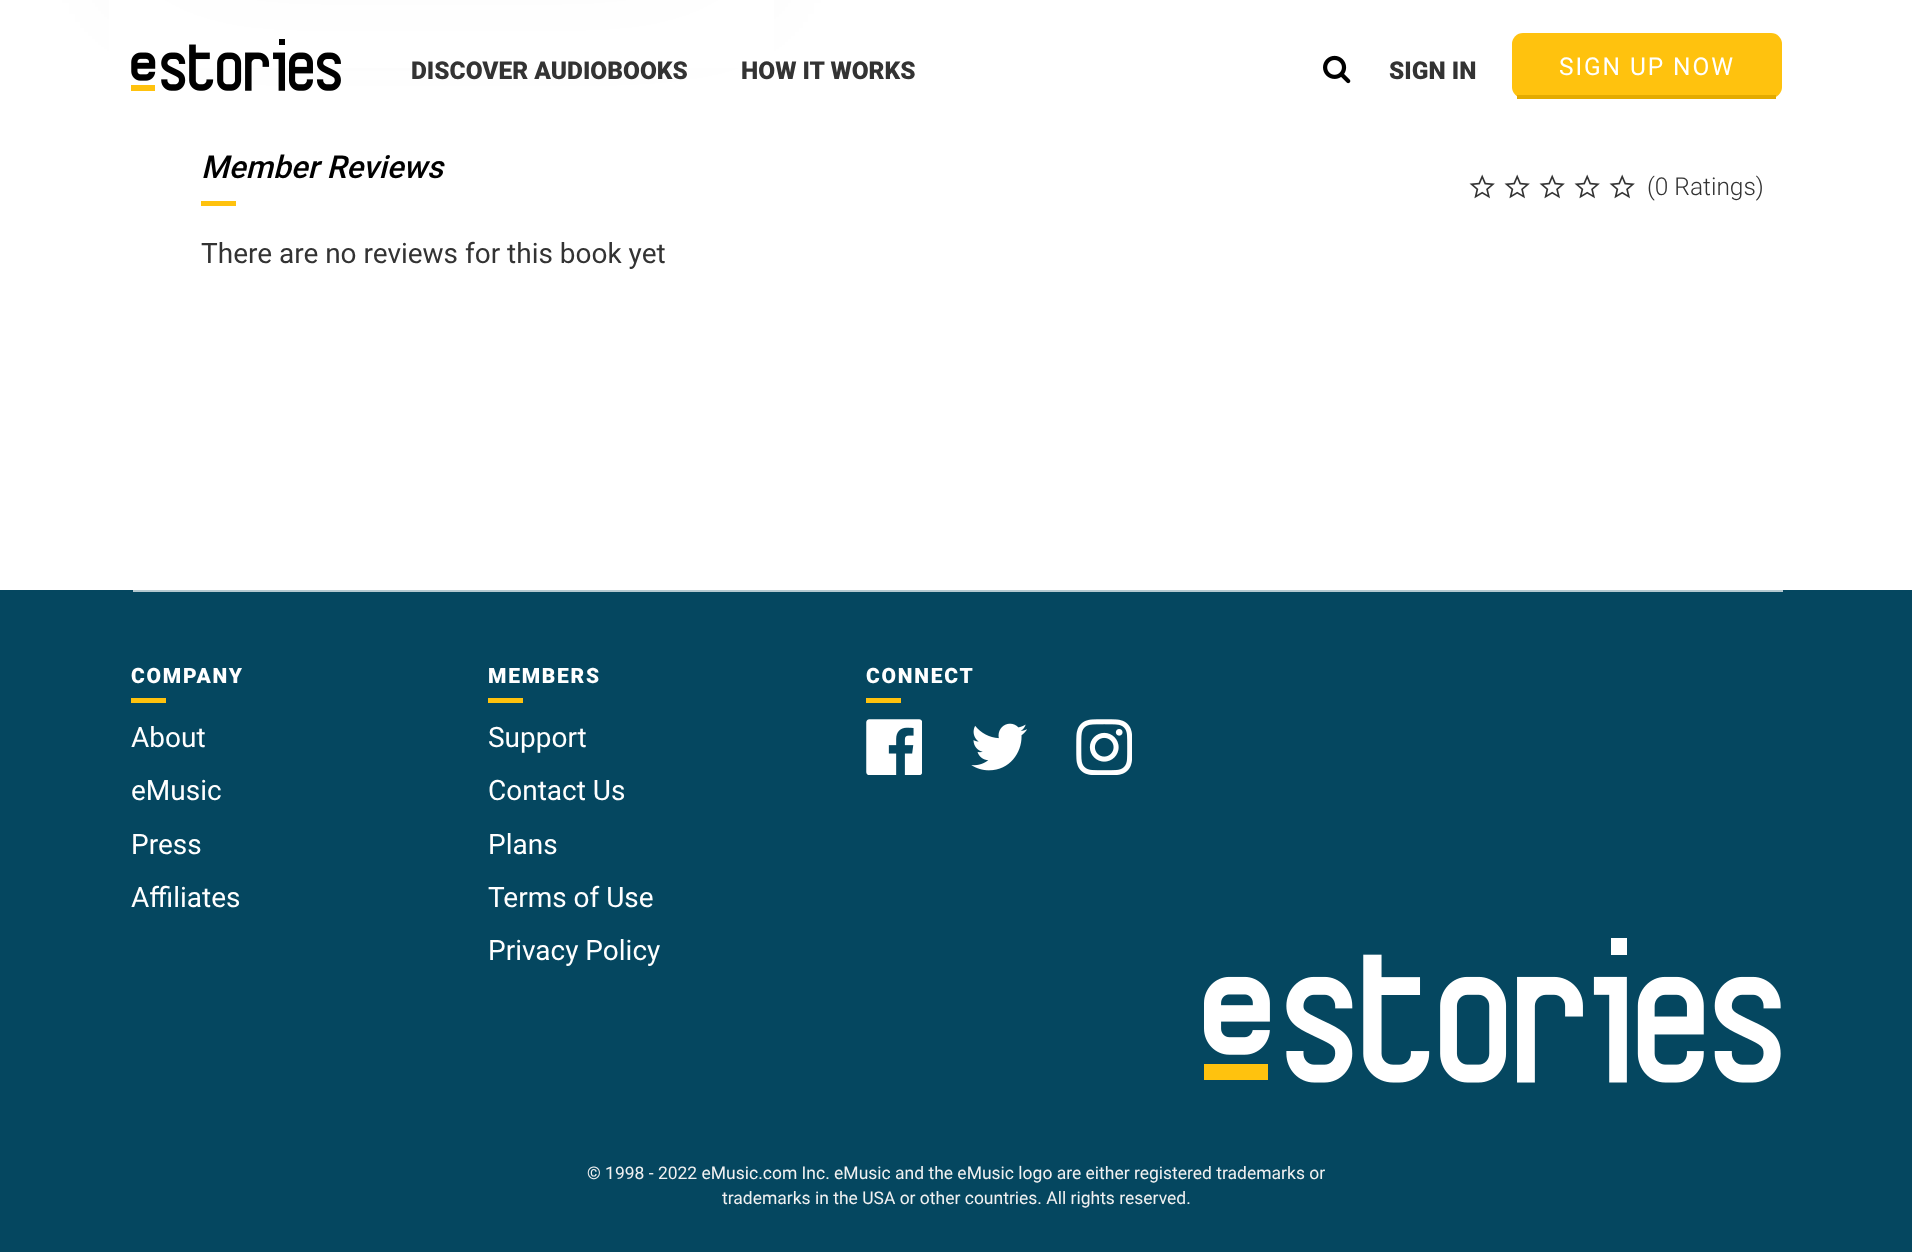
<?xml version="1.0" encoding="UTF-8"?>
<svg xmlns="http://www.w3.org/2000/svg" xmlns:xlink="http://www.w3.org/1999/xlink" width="1912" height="1252">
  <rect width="100%" height="100%" fill="#ffffff" />
  <rect x="179" y="-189" width="525" height="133" fill="#000000" fill-opacity="0.45" filter="blur(63px)" />
  <rect x="109" width="665" height="68" fill="#ffffff" fill-opacity="0.9" />
  <image x="131" y="39" width="210" height="52" xlink:href="image1.png" />
  <image x="1323" y="55" width="28" height="29" xlink:href="image2.png" />
  <rect x="1512" y="33" width="270" height="65" rx="11" fill="#ffc20e" />
  <rect x="1517" y="95" width="259" height="4" fill="#e3ab00" />
  <rect x="201" y="201" width="35" height="5" fill="#ffc20e" />
  <image x="1469" y="174" width="26" height="25" xlink:href="image3.png" />
  <image x="1504" y="174" width="26" height="25" xlink:href="image3.png" />
  <image x="1539" y="174" width="26" height="25" xlink:href="image3.png" />
  <image x="1574" y="174" width="26" height="25" xlink:href="image3.png" />
  <image x="1609" y="174" width="26" height="25" xlink:href="image3.png" />
  <rect y="590" width="1912" height="662" fill="#054760" />
  <rect x="133" y="590" width="1650" height="2" fill="#b4c8cf" />
  <rect x="131" y="698" width="35" height="5" fill="#ffc20e" />
  <rect x="488" y="698" width="35" height="5" fill="#ffc20e" />
  <rect x="866" y="698" width="35" height="5" fill="#ffc20e" />
  <image x="866" y="719" width="56" height="56" xlink:href="image4.png" />
  <image x="971" y="723" width="56" height="48" xlink:href="image5.png" />
  <image x="1076" y="719" width="56" height="56" xlink:href="image6.png" />
  <image x="1204" y="938" width="577" height="145" xlink:href="image7.png" />
  <text x="411" y="79" style="font-family: Roboto; font-size: 24.5px; font-weight: 900; fill: #333333">DISCOVER AUDIOBOOKS</text>
  <text x="741" y="79" style="font-family: Roboto; font-size: 24.5px; font-weight: 900; fill: #333333">HOW IT WORKS</text>
  <text x="1389" y="79" style="font-family: Roboto; font-size: 24.5px; font-weight: 900; fill: #333333">SIGN IN</text>
  <text x="1559" y="75" style="font-family: Roboto; font-size: 24.5px; letter-spacing: 1.9px; fill: #ffffff">SIGN UP NOW</text>
  <text x="201" y="178" style="font-family: Roboto; font-size: 31.5px; font-weight: 500; font-style: italic; fill: #000000">Member Reviews</text>
  <text x="201" y="263" style="font-family: Roboto; font-size: 28px; fill: #333333">There are no reviews for this book yet</text>
  <text x="1647" y="195" style="font-family: Roboto; font-size: 24.5px; font-weight: 300; fill: #333333">(0 Ratings)</text>
  <text x="131" y="683" style="font-family: Roboto; font-size: 21px; font-weight: 900; letter-spacing: 1.75px; fill: #ffffff">COMPANY</text>
  <text x="131" y="747" style="font-family: Roboto; font-size: 28px; fill: #ffffff">About</text>
  <text x="131" y="800" style="font-family: Roboto; font-size: 28px; fill: #ffffff">eMusic</text>
  <text x="131" y="854" style="font-family: Roboto; font-size: 28px; fill: #ffffff">Press</text>
  <text x="131" y="907" style="font-family: Roboto; font-size: 28px; fill: #ffffff">Affiliates</text>
  <text x="488" y="683" style="font-family: Roboto; font-size: 21px; font-weight: 900; letter-spacing: 1.75px; fill: #ffffff">MEMBERS</text>
  <text x="488" y="747" style="font-family: Roboto; font-size: 28px; fill: #ffffff">Support</text>
  <text x="488" y="800" style="font-family: Roboto; font-size: 28px; fill: #ffffff">Contact Us</text>
  <text x="488" y="854" style="font-family: Roboto; font-size: 28px; fill: #ffffff">Plans</text>
  <text x="488" y="907" style="font-family: Roboto; font-size: 28px; fill: #ffffff">Terms of Use</text>
  <text x="488" y="960" style="font-family: Roboto; font-size: 28px; fill: #ffffff">Privacy Policy</text>
  <text x="866" y="683" style="font-family: Roboto; font-size: 21px; font-weight: 900; letter-spacing: 1.75px; fill: #ffffff">CONNECT</text>
  <text x="587" y="1179" style="font-family: Roboto; font-size: 17.5px; fill: #f1f1f1">© 1998 - 2022 eMusic.com Inc. eMusic and the eMusic logo are either registered trademarks or</text>
  <text x="722" y="1204" style="font-family: Roboto; font-size: 17.5px; fill: #f1f1f1">trademarks in the USA or other countries. All rights reserved.</text>
</svg>
